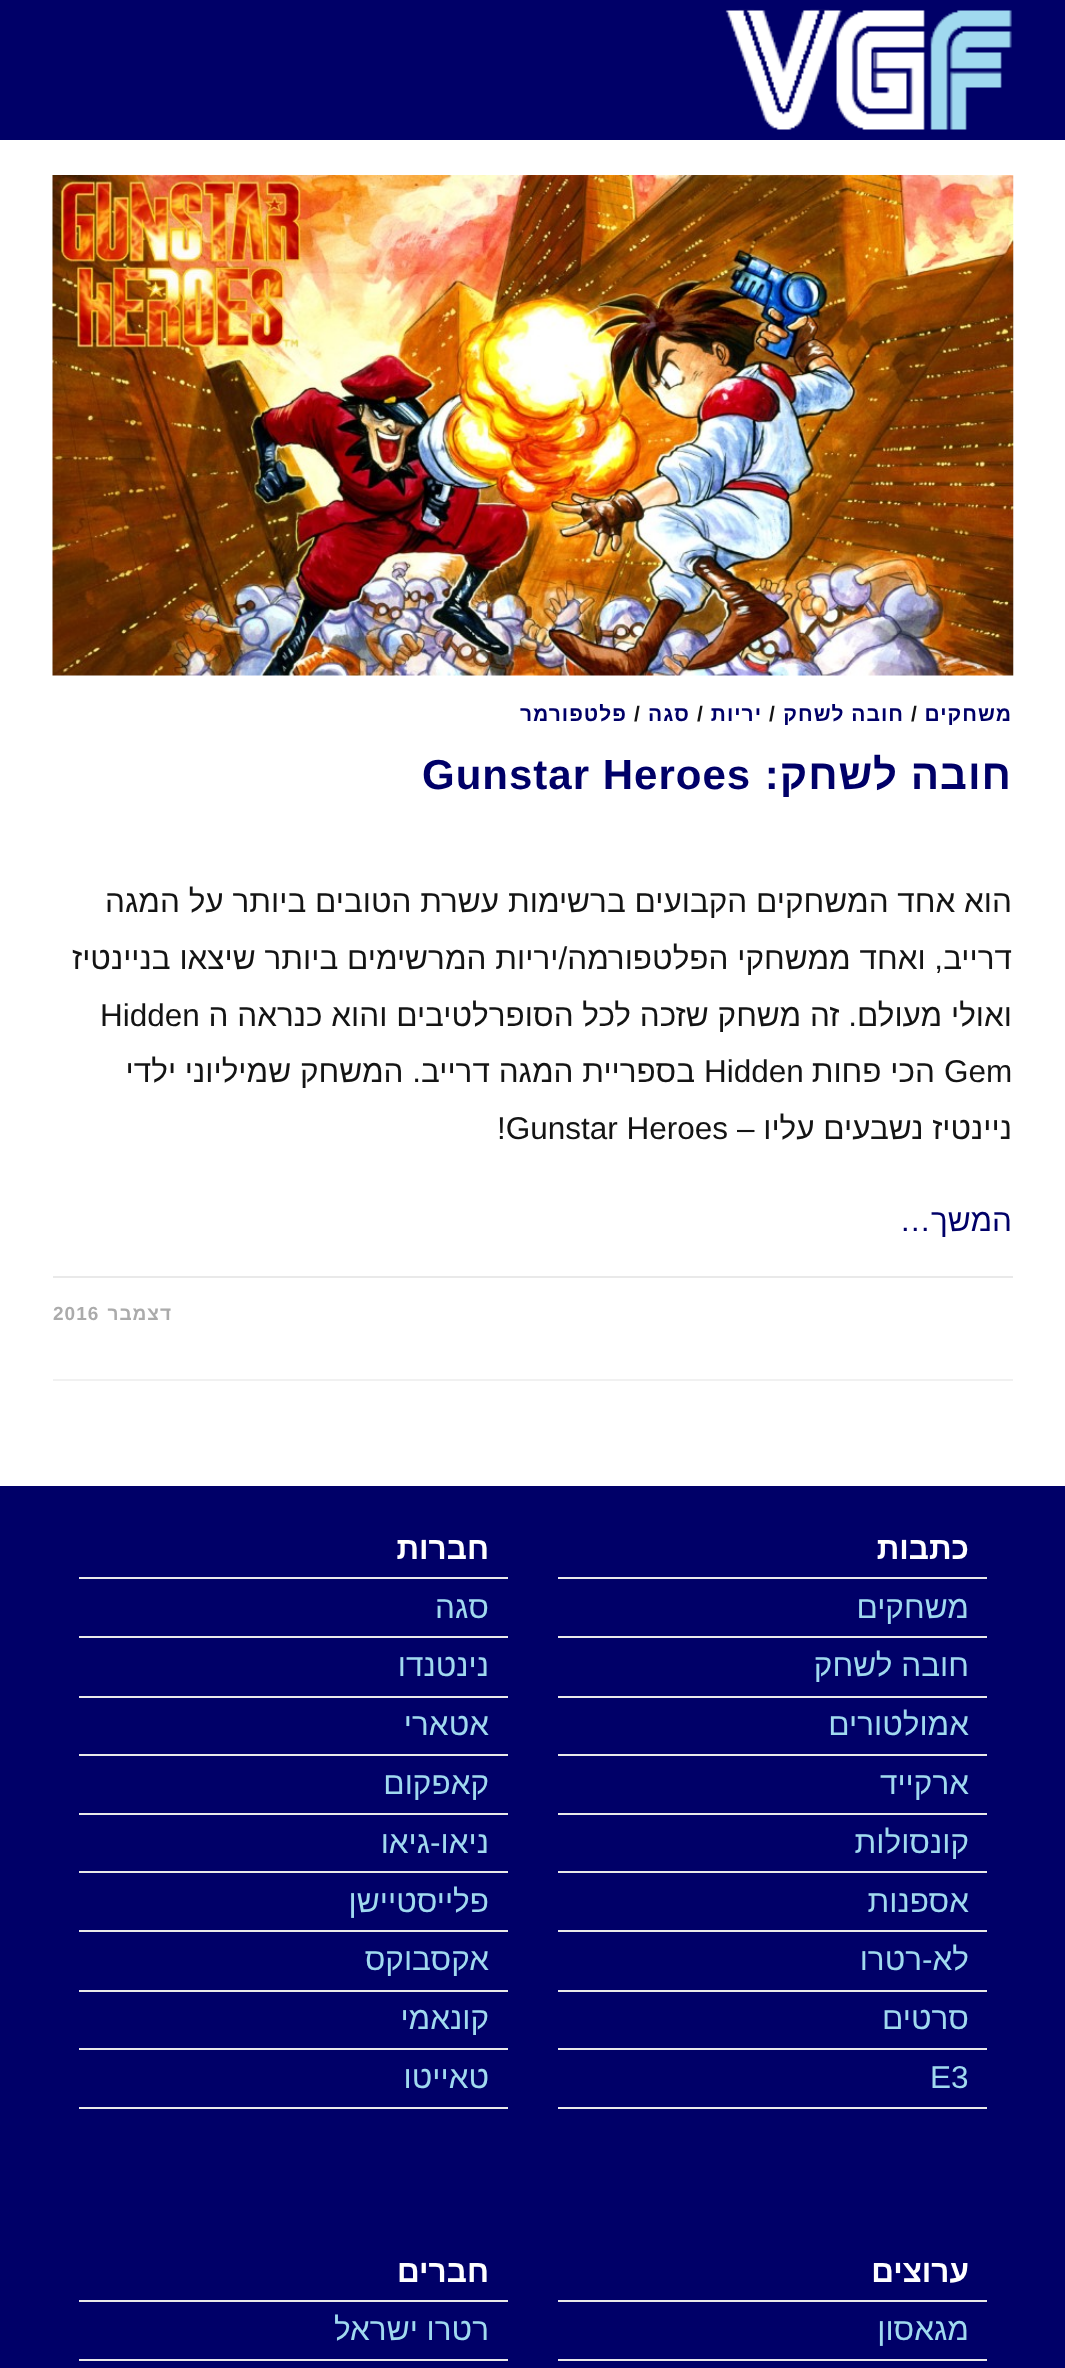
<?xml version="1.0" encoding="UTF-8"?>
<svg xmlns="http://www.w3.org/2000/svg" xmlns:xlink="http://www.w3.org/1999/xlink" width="1065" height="2368">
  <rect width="100%" height="100%" fill="#ffffff" />
  <rect width="1065" height="140" fill="#000068" />
  <image x="725" y="9" width="287" height="121" xlink:href="image1.png" />
  <rect x="53" y="1379" width="960" height="2" fill="#f1f1f1" />
  <image x="52" y="175" width="962" height="501" xlink:href="image2.png" />
  <rect x="53" y="1276" width="960" height="2" fill="#e9e9e9" />
  <rect y="1486" width="1065" height="882" fill="#000068" />
  <rect x="558" y="1577" width="429" height="2" fill="#e9e9e9" />
  <rect x="558" y="1636" width="429" height="2" fill="#e9e9e9" />
  <rect x="558" y="1696" width="429" height="2" fill="#e9e9e9" />
  <rect x="558" y="1754" width="429" height="2" fill="#e9e9e9" />
  <rect x="558" y="1813" width="429" height="2" fill="#e9e9e9" />
  <rect x="558" y="1871" width="429" height="2" fill="#e9e9e9" />
  <rect x="558" y="1930" width="429" height="2" fill="#e9e9e9" />
  <rect x="558" y="1990" width="429" height="2" fill="#e9e9e9" />
  <rect x="558" y="2048" width="429" height="2" fill="#e9e9e9" />
  <rect x="558" y="2107" width="429" height="2" fill="#e9e9e9" />
  <rect x="79" y="1577" width="429" height="2" fill="#e9e9e9" />
  <rect x="79" y="1636" width="429" height="2" fill="#e9e9e9" />
  <rect x="79" y="1696" width="429" height="2" fill="#e9e9e9" />
  <rect x="79" y="1754" width="429" height="2" fill="#e9e9e9" />
  <rect x="79" y="1813" width="429" height="2" fill="#e9e9e9" />
  <rect x="79" y="1871" width="429" height="2" fill="#e9e9e9" />
  <rect x="79" y="1930" width="429" height="2" fill="#e9e9e9" />
  <rect x="79" y="1990" width="429" height="2" fill="#e9e9e9" />
  <rect x="79" y="2048" width="429" height="2" fill="#e9e9e9" />
  <rect x="79" y="2107" width="429" height="2" fill="#e9e9e9" />
  <rect x="558" y="2300" width="429" height="2" fill="#e9e9e9" />
  <rect x="558" y="2359" width="429" height="2" fill="#e9e9e9" />
  <rect x="79" y="2300" width="429" height="2" fill="#e9e9e9" />
  <rect x="79" y="2359" width="429" height="2" fill="#e9e9e9" />
  <text x="1012" y="721" style="font-family: Liberation Sans; font-size: 21px; font-weight: bold; letter-spacing: 1px; direction: rtl; fill: #000068">משחקים</text>
  <text x="911" y="721" style="font-family: Liberation Sans; font-size: 21px; font-weight: bold; letter-spacing: 1px; fill: #141414">/</text>
  <text x="904" y="721" style="font-family: Liberation Sans; font-size: 21px; font-weight: bold; letter-spacing: 1px; direction: rtl; fill: #000068">חובה לשחק</text>
  <text x="769" y="721" style="font-family: Liberation Sans; font-size: 21px; font-weight: bold; letter-spacing: 1px; fill: #141414">/</text>
  <text x="762" y="721" style="font-family: Liberation Sans; font-size: 21px; font-weight: bold; letter-spacing: 1px; direction: rtl; fill: #000068">יריות</text>
  <text x="697" y="721" style="font-family: Liberation Sans; font-size: 21px; font-weight: bold; letter-spacing: 1px; fill: #141414">/</text>
  <text x="690" y="721" style="font-family: Liberation Sans; font-size: 21px; font-weight: bold; letter-spacing: 1px; direction: rtl; fill: #000068">סגה</text>
  <text x="634" y="721" style="font-family: Liberation Sans; font-size: 21px; font-weight: bold; letter-spacing: 1px; fill: #141414">/</text>
  <text x="627" y="721" style="font-family: Liberation Sans; font-size: 21px; font-weight: bold; letter-spacing: 1px; direction: rtl; fill: #000068">פלטפורמר</text>
  <text x="1012" y="789" style="font-family: Liberation Sans; font-size: 42px; font-weight: bold; letter-spacing: 1px; direction: rtl; fill: #000068">חובה לשחק:</text>
  <text x="422" y="789" style="font-family: Liberation Sans; font-size: 42px; font-weight: bold; letter-spacing: 1px; fill: #000068">Gunstar Heroes</text>
  <text x="1012" y="912" style="font-family: Liberation Sans; font-size: 31.5px; direction: rtl; fill: #141414">הוא אחד המשחקים הקבועים ברשימות עשרת הטובים ביותר על המגה</text>
  <text x="1012" y="969" style="font-family: Liberation Sans; font-size: 31.5px; direction: rtl; fill: #141414">דרייב, ואחד ממשחקי הפלטפורמה/יריות המרשימים ביותר שיצאו בניינטיז</text>
  <text x="1012" y="1026" style="font-family: Liberation Sans; font-size: 31.5px; direction: rtl; fill: #141414">ואולי מעולם. זה משחק שזכה לכל הסופרלטיבים והוא כנראה ה</text>
  <text x="100" y="1026" style="font-family: Liberation Sans; font-size: 31.5px; fill: #141414">Hidden</text>
  <text x="944" y="1082" style="font-family: Liberation Sans; font-size: 31.5px; fill: #141414">Gem</text>
  <text x="935" y="1082" style="font-family: Liberation Sans; font-size: 31.5px; direction: rtl; fill: #141414">הכי פחות</text>
  <text x="704" y="1082" style="font-family: Liberation Sans; font-size: 31.5px; fill: #141414">Hidden</text>
  <text x="695" y="1082" style="font-family: Liberation Sans; font-size: 31.5px; direction: rtl; fill: #141414">בספריית המגה דרייב. המשחק שמיליוני ילדי</text>
  <text x="1012" y="1139" style="font-family: Liberation Sans; font-size: 31.5px; direction: rtl; fill: #141414">ניינטיז נשבעים עליו –</text>
  <text x="497" y="1139" style="font-family: Liberation Sans; font-size: 31.5px; fill: #141414">!Gunstar Heroes</text>
  <text x="1012" y="1231" style="font-family: Liberation Sans; font-size: 31.5px; direction: rtl; fill: #000068">המשך…</text>
  <text x="172" y="1320" style="font-family: Liberation Sans; font-size: 19px; font-weight: bold; letter-spacing: 1px; direction: rtl; fill: #ababab">דצמבר</text>
  <text x="53" y="1320" style="font-family: Liberation Sans; font-size: 19px; font-weight: bold; letter-spacing: 1px; fill: #ababab">2016</text>
  <text x="969" y="1559" style="font-family: Liberation Sans; font-size: 31.5px; font-weight: bold; direction: rtl; fill: #ffffff">כתבות</text>
  <text x="969" y="1618" style="font-family: Liberation Sans; font-size: 31.5px; direction: rtl; fill: #a0d9ef">משחקים</text>
  <text x="969" y="1676" style="font-family: Liberation Sans; font-size: 31.5px; direction: rtl; fill: #a0d9ef">חובה לשחק</text>
  <text x="969" y="1735" style="font-family: Liberation Sans; font-size: 31.5px; direction: rtl; fill: #a0d9ef">אמולטורים</text>
  <text x="969" y="1794" style="font-family: Liberation Sans; font-size: 31.5px; direction: rtl; fill: #a0d9ef">ארקייד</text>
  <text x="969" y="1853" style="font-family: Liberation Sans; font-size: 31.5px; direction: rtl; fill: #a0d9ef">קונסולות</text>
  <text x="969" y="1912" style="font-family: Liberation Sans; font-size: 31.5px; direction: rtl; fill: #a0d9ef">אספנות</text>
  <text x="969" y="1970" style="font-family: Liberation Sans; font-size: 31.5px; direction: rtl; fill: #a0d9ef">לא-רטרו</text>
  <text x="969" y="2029" style="font-family: Liberation Sans; font-size: 31.5px; direction: rtl; fill: #a0d9ef">סרטים</text>
  <text x="930" y="2088" style="font-family: Liberation Sans; font-size: 31.5px; fill: #a0d9ef">E3</text>
  <text x="489" y="1559" style="font-family: Liberation Sans; font-size: 31.5px; font-weight: bold; direction: rtl; fill: #ffffff">חברות</text>
  <text x="489" y="1618" style="font-family: Liberation Sans; font-size: 31.5px; direction: rtl; fill: #a0d9ef">סגה</text>
  <text x="489" y="1676" style="font-family: Liberation Sans; font-size: 31.5px; direction: rtl; fill: #a0d9ef">נינטנדו</text>
  <text x="489" y="1735" style="font-family: Liberation Sans; font-size: 31.5px; direction: rtl; fill: #a0d9ef">אטארי</text>
  <text x="489" y="1794" style="font-family: Liberation Sans; font-size: 31.5px; direction: rtl; fill: #a0d9ef">קאפקום</text>
  <text x="489" y="1853" style="font-family: Liberation Sans; font-size: 31.5px; direction: rtl; fill: #a0d9ef">ניאו-גיאו</text>
  <text x="489" y="1912" style="font-family: Liberation Sans; font-size: 31.5px; direction: rtl; fill: #a0d9ef">פלייסטיישן</text>
  <text x="489" y="1970" style="font-family: Liberation Sans; font-size: 31.5px; direction: rtl; fill: #a0d9ef">אקסבוקס</text>
  <text x="489" y="2029" style="font-family: Liberation Sans; font-size: 31.5px; direction: rtl; fill: #a0d9ef">קונאמי</text>
  <text x="489" y="2088" style="font-family: Liberation Sans; font-size: 31.5px; direction: rtl; fill: #a0d9ef">טאייטו</text>
  <text x="969" y="2282" style="font-family: Liberation Sans; font-size: 31.5px; font-weight: bold; direction: rtl; fill: #ffffff">ערוצים</text>
  <text x="969" y="2340" style="font-family: Liberation Sans; font-size: 31.5px; direction: rtl; fill: #a0d9ef">מגאסון</text>
  <text x="489" y="2282" style="font-family: Liberation Sans; font-size: 31.5px; font-weight: bold; direction: rtl; fill: #ffffff">חברים</text>
  <text x="489" y="2340" style="font-family: Liberation Sans; font-size: 31.5px; direction: rtl; fill: #a0d9ef">רטרו ישראל</text>
</svg>
